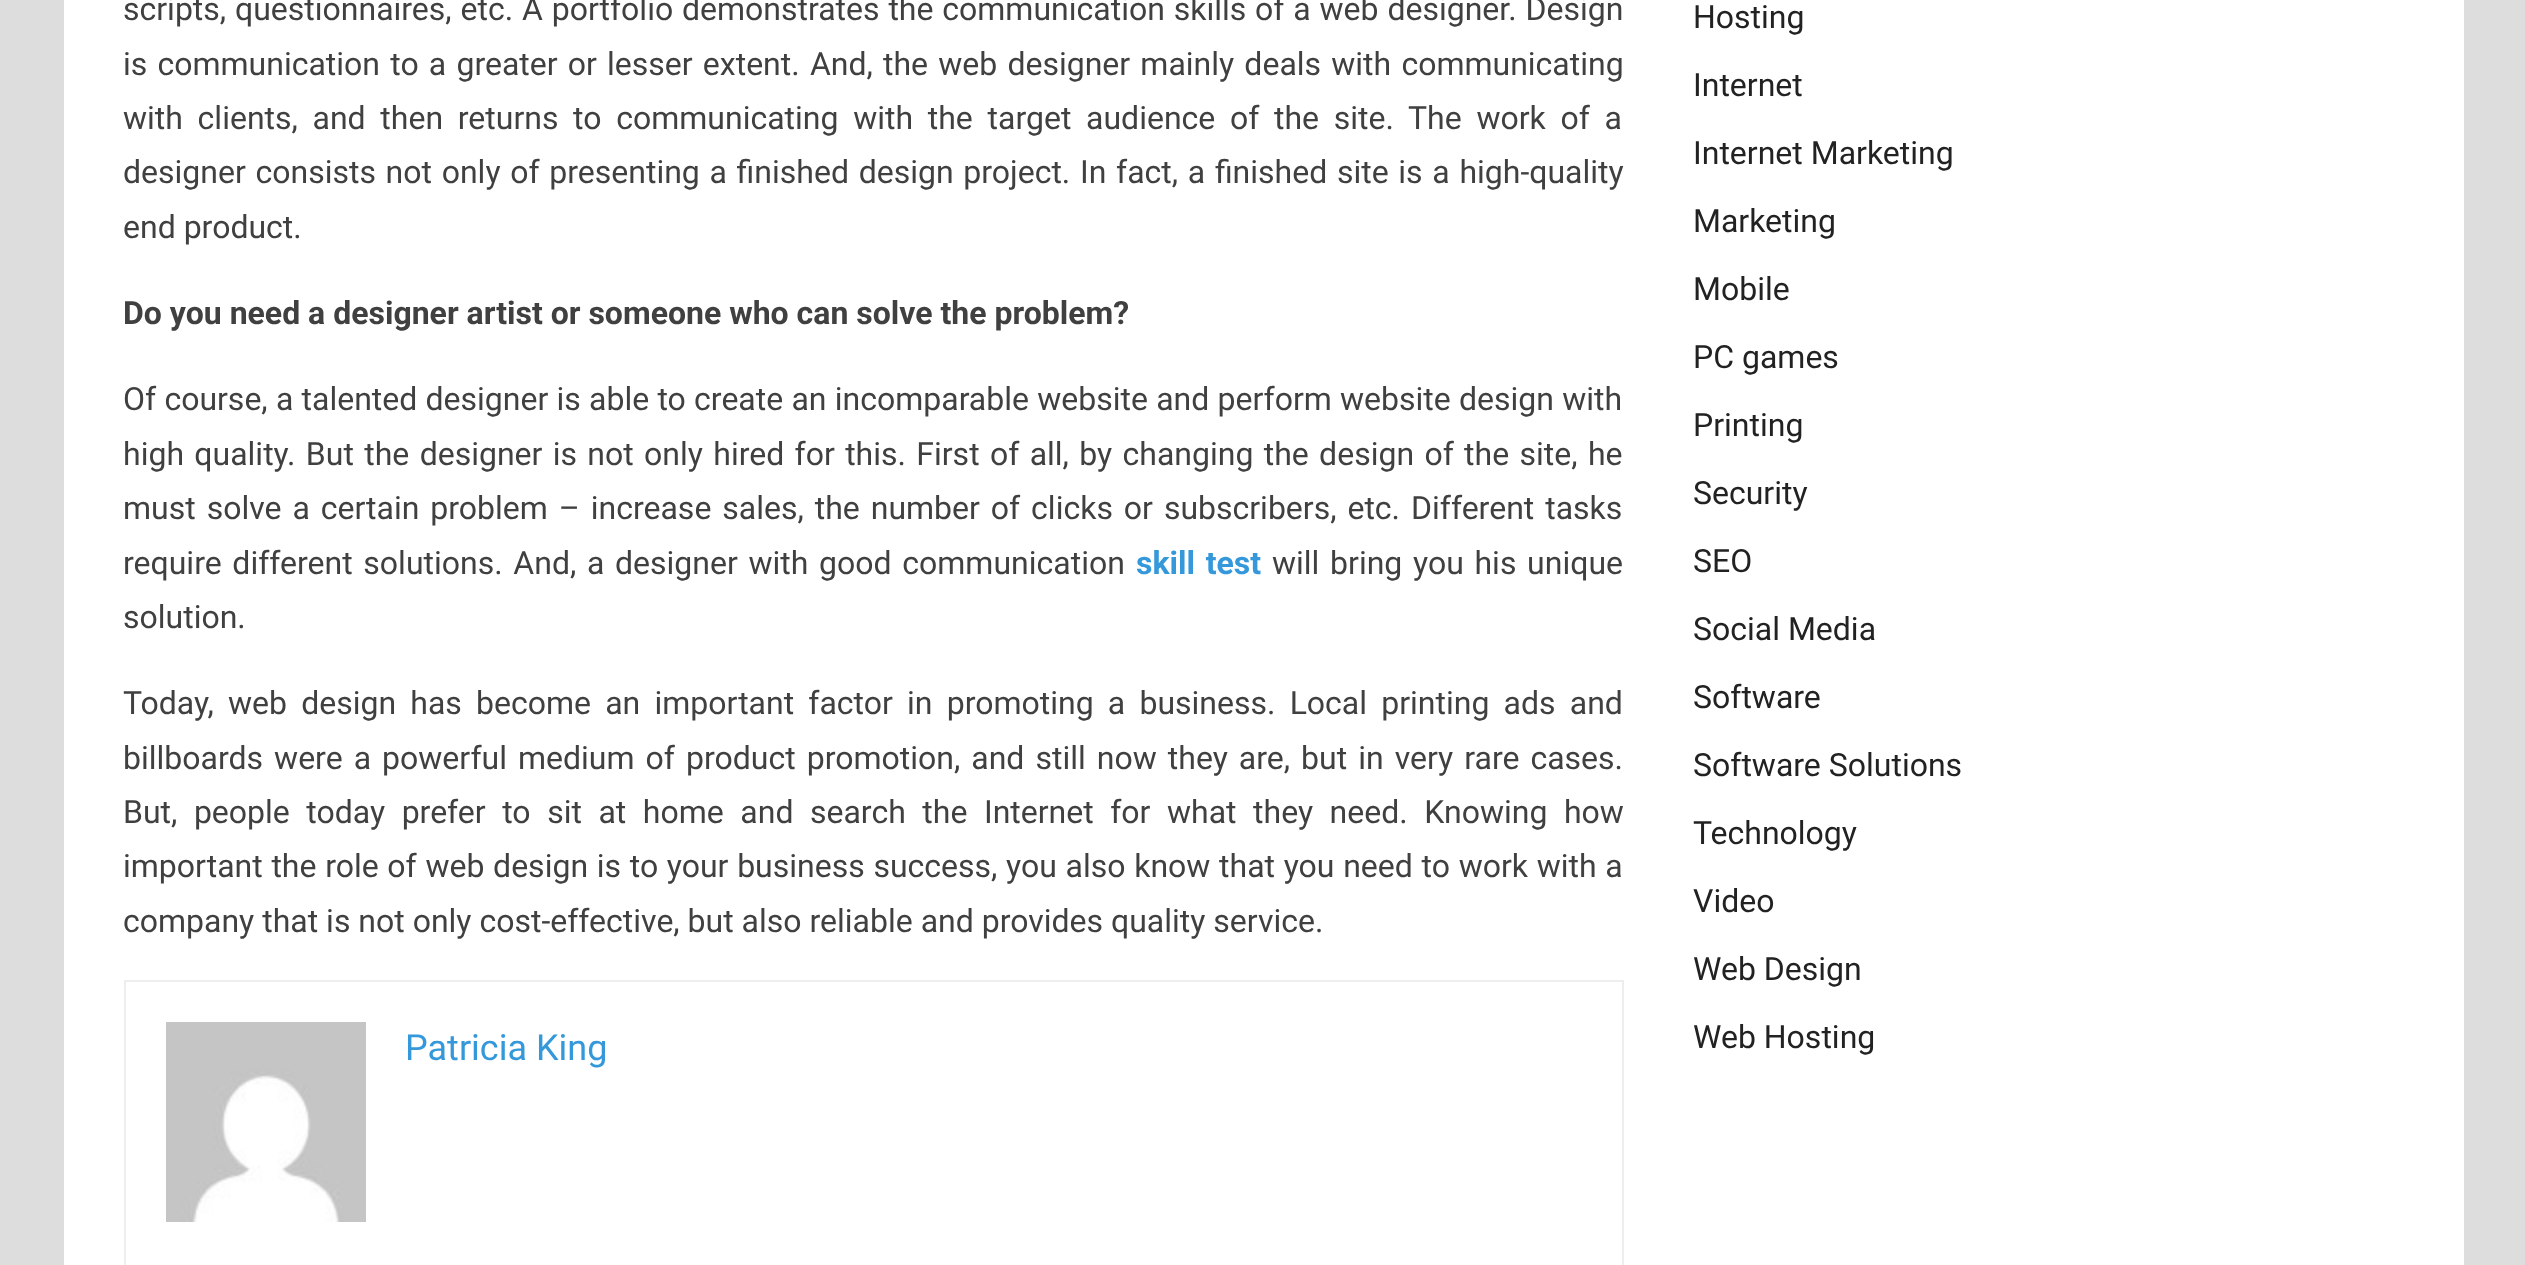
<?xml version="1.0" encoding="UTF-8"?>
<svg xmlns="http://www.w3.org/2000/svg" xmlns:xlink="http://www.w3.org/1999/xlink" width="2525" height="1265">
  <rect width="100%" height="100%" fill="#dddddd" />
  <rect x="64" width="2400" height="1265" fill="#ffffff" />
  <rect x="125" y="981" width="1498" height="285" fill="none" stroke="#eeeeee" stroke-width="2" />
  <image x="166" y="1022" width="200" height="200" xlink:href="image1.png" />
  <text x="123" y="20" word-spacing="0.9" style="font-family: Roboto; font-size: 32px; fill: #404040">scripts, questionnaires, etc. A portfolio demonstrates the communication skills of a web designer. Design</text>
  <text x="123" y="75" word-spacing="2.25" style="font-family: Roboto; font-size: 32px; fill: #404040">is communication to a greater or lesser extent. And, the web designer mainly deals with communicating</text>
  <text x="123" y="129" word-spacing="6.75" style="font-family: Roboto; font-size: 32px; fill: #404040">with clients, and then returns to communicating with the target audience of the site. The work of a</text>
  <text x="123" y="183" word-spacing="1.75" style="font-family: Roboto; font-size: 32px; fill: #404040">designer consists not only of presenting a finished design project. In fact, a finished site is a high-quality</text>
  <text x="123" y="238" style="font-family: Roboto; font-size: 32px; fill: #404040">end product.</text>
  <text x="123" y="324" style="font-family: Roboto; font-size: 32px; font-weight: bold; fill: #404040">Do you need a designer artist or someone who can solve the problem?</text>
  <text x="123" y="410" word-spacing="0.3" style="font-family: Roboto; font-size: 32px; fill: #404040">Of course, a talented designer is able to create an incomparable website and perform website design with</text>
  <text x="123" y="465" word-spacing="2.4" style="font-family: Roboto; font-size: 32px; fill: #404040">high quality. But the designer is not only hired for this. First of all, by changing the design of the site, he</text>
  <text x="123" y="519" word-spacing="3" style="font-family: Roboto; font-size: 32px; fill: #404040">must solve a certain problem – increase sales, the number of clicks or subscribers, etc. Different tasks</text>
  <text x="123" y="574" word-spacing="2.75" style="font-family: Roboto; font-size: 32px; fill: #404040">require different solutions. And, a designer with good communication</text>
  <text x="1136" y="574" word-spacing="2.75" style="font-family: Roboto; font-size: 32px; font-weight: bold; fill: #3498db">skill test</text>
  <text x="1272" y="574" word-spacing="2.75" style="font-family: Roboto; font-size: 32px; fill: #404040">will bring you his unique</text>
  <text x="123" y="628" style="font-family: Roboto; font-size: 32px; fill: #404040">solution.</text>
  <text x="123" y="714" word-spacing="6.25" style="font-family: Roboto; font-size: 32px; fill: #404040">Today, web design has become an important factor in promoting a business. Local printing ads and</text>
  <text x="123" y="769" word-spacing="3.1" style="font-family: Roboto; font-size: 32px; fill: #404040">billboards were a powerful medium of product promotion, and still now they are, but in very rare cases.</text>
  <text x="123" y="823" word-spacing="8.6" style="font-family: Roboto; font-size: 32px; fill: #404040">But, people today prefer to sit at home and search the Internet for what they need. Knowing how</text>
  <text x="123" y="877" word-spacing="0.75" style="font-family: Roboto; font-size: 32px; fill: #404040">important the role of web design is to your business success, you also know that you need to work with a</text>
  <text x="123" y="932" style="font-family: Roboto; font-size: 32px; fill: #404040">company that is not only cost-effective, but also reliable and provides quality service.</text>
  <text x="405" y="1060" style="font-family: Roboto; font-size: 36px; fill: #3498db">Patricia King</text>
  <text x="1693" y="28" style="font-family: Roboto; font-size: 32px; fill: #222222">Hosting</text>
  <text x="1693" y="96" style="font-family: Roboto; font-size: 32px; fill: #222222">Internet</text>
  <text x="1693" y="164" style="font-family: Roboto; font-size: 32px; fill: #222222">Internet Marketing</text>
  <text x="1693" y="232" style="font-family: Roboto; font-size: 32px; fill: #222222">Marketing</text>
  <text x="1693" y="300" style="font-family: Roboto; font-size: 32px; fill: #222222">Mobile</text>
  <text x="1693" y="368" style="font-family: Roboto; font-size: 32px; fill: #222222">PC games</text>
  <text x="1693" y="436" style="font-family: Roboto; font-size: 32px; fill: #222222">Printing</text>
  <text x="1693" y="504" style="font-family: Roboto; font-size: 32px; fill: #222222">Security</text>
  <text x="1693" y="572" style="font-family: Roboto; font-size: 32px; fill: #222222">SEO</text>
  <text x="1693" y="640" style="font-family: Roboto; font-size: 32px; fill: #222222">Social Media</text>
  <text x="1693" y="708" style="font-family: Roboto; font-size: 32px; fill: #222222">Software</text>
  <text x="1693" y="776" style="font-family: Roboto; font-size: 32px; fill: #222222">Software Solutions</text>
  <text x="1693" y="844" style="font-family: Roboto; font-size: 32px; fill: #222222">Technology</text>
  <text x="1693" y="912" style="font-family: Roboto; font-size: 32px; fill: #222222">Video</text>
  <text x="1693" y="980" style="font-family: Roboto; font-size: 32px; fill: #222222">Web Design</text>
  <text x="1693" y="1048" style="font-family: Roboto; font-size: 32px; fill: #222222">Web Hosting</text>
</svg>
